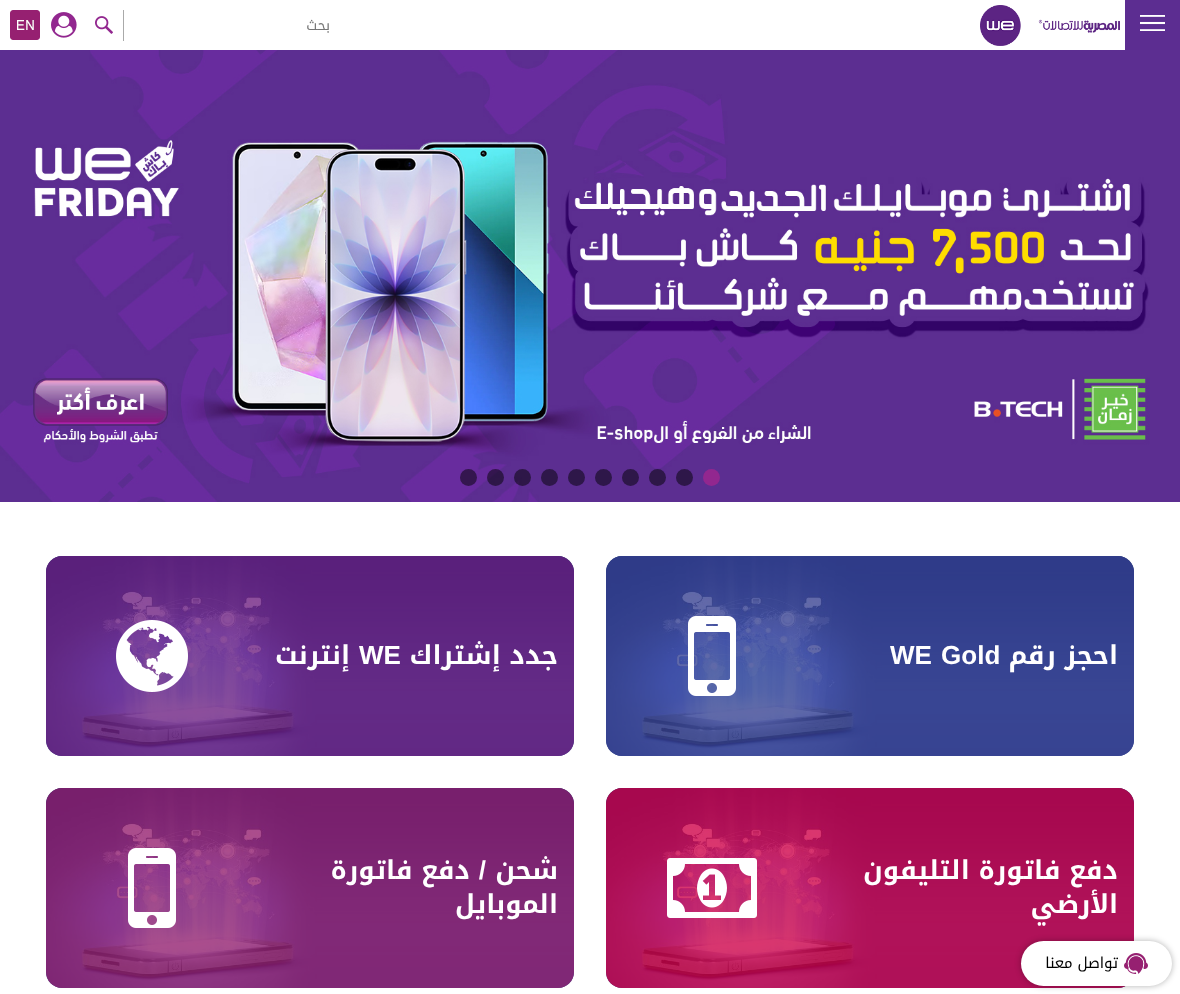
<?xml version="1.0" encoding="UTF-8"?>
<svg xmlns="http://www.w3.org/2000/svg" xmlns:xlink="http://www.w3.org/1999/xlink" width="1180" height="994">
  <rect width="100%" height="100%" fill="#ffffff" />
  <rect x="1125" width="55" height="50" fill="#5c2d91" />
  <image x="1140" y="15" width="25" height="16" xlink:href="image1.png" />
  <image x="980" y="5" width="140" height="41" xlink:href="image2.png" />
  <rect x="123" y="10" width="1" height="31" fill="#aaaaaa" />
  <image x="95" y="16" width="18" height="18" xlink:href="image3.png" />
  <image x="51" y="12" width="26" height="26" xlink:href="image4.png" />
  <image x="10" y="10" width="30" height="30" xlink:href="image5.png" />
  <image x="0" y="50" width="1180" height="452" xlink:href="image6.png" />
  <circle cx="711.5" cy="477.5" r="8.5" fill="#92278f" />
  <circle cx="684.5" cy="477.5" r="8.5" fill="#2e1749" />
  <circle cx="657.5" cy="477.5" r="8.5" fill="#2e1748" />
  <circle cx="630.5" cy="477.5" r="8.5" fill="#2e1749" />
  <circle cx="603.5" cy="477.5" r="8.5" fill="#2e1749" />
  <circle cx="576.5" cy="477.5" r="8.5" fill="#2e1749" />
  <circle cx="549.5" cy="477.5" r="8.5" fill="#2e1749" />
  <circle cx="522.5" cy="477.5" r="8.5" fill="#000000" fill-opacity="0.5" />
  <circle cx="495.5" cy="477.5" r="8.5" fill="#000000" fill-opacity="0.5" />
  <circle cx="468.5" cy="477.5" r="8.5" fill="#34164f" />
  <image x="606" y="556" width="528" height="200" xlink:href="image7.png" />
  <rect x="606" y="556" width="528" height="200" rx="16" fill="#3b4394" fill-opacity="0.8" />
  <image x="688" y="616" width="48" height="80" xlink:href="image8.png" />
  <image x="46" y="556" width="528" height="200" xlink:href="image9.png" />
  <rect x="46" y="556" width="528" height="200" rx="16" fill="#702283" fill-opacity="0.8" />
  <image x="116" y="620" width="72" height="72" xlink:href="image10.png" />
  <image x="606" y="788" width="528" height="200" xlink:href="image11.png" />
  <rect x="606" y="788" width="528" height="200" rx="16" fill="#d1044b" fill-opacity="0.8" />
  <image x="667" y="858" width="90" height="60" xlink:href="image12.png" />
  <image x="46" y="788" width="528" height="200" xlink:href="image13.png" />
  <rect x="46" y="788" width="528" height="200" rx="16" fill="#962071" fill-opacity="0.8" />
  <image x="128" y="848" width="48" height="80" xlink:href="image14.png" />
  <rect x="1021" y="941" width="151" height="45" rx="22.5" fill="#000000" fill-opacity="0.3" filter="blur(3px)" />
  <rect x="1021" y="941" width="151" height="45" rx="22.5" fill="#ffffff" />
  <image x="1124" y="953" width="24" height="21" xlink:href="image15.png" />
  <text x="330" y="30" style="font-family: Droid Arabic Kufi; font-size: 14px; direction: rtl; fill: #757575">بحث</text>
  <text x="1118" y="664" style="font-family: Droid Arabic Kufi; font-size: 26px; font-weight: bold; direction: rtl; fill: #ffffff">احجز رقم</text>
  <text x="890" y="664" word-spacing="2" style="font-family: Liberation Sans; font-size: 26px; font-weight: bold; fill: #ffffff">WE Gold</text>
  <text x="558" y="664" style="font-family: Droid Arabic Kufi; font-size: 26px; font-weight: bold; direction: rtl; fill: #ffffff">جدد إشتراك</text>
  <text x="359" y="664" style="font-family: Liberation Sans; font-size: 26px; font-weight: bold; fill: #ffffff">WE</text>
  <text x="350" y="664" style="font-family: Droid Arabic Kufi; font-size: 26px; font-weight: bold; direction: rtl; fill: #ffffff">إنترنت</text>
  <text x="1118" y="879" style="font-family: Droid Arabic Kufi; font-size: 26px; font-weight: bold; direction: rtl; fill: #ffffff">دفع فاتورة التليفون</text>
  <text x="1118" y="913" style="font-family: Droid Arabic Kufi; font-size: 26px; font-weight: bold; direction: rtl; fill: #ffffff">الأرضي</text>
  <text x="558" y="879" style="font-family: Droid Arabic Kufi; font-size: 26px; font-weight: bold; direction: rtl; fill: #ffffff">شحن</text>
  <text x="486" y="879" style="font-family: Liberation Sans; font-size: 26px; font-weight: bold; direction: rtl; fill: #ffffff">/</text>
  <text x="470" y="879" style="font-family: Droid Arabic Kufi; font-size: 26px; font-weight: bold; direction: rtl; fill: #ffffff">دفع فاتورة</text>
  <text x="558" y="913" style="font-family: Droid Arabic Kufi; font-size: 26px; font-weight: bold; direction: rtl; fill: #ffffff">الموبايل</text>
  <text x="1118" y="968" style="font-family: 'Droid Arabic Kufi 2'; font-size: 15px; direction: rtl; fill: #000000">تواصل معنا</text>
</svg>
